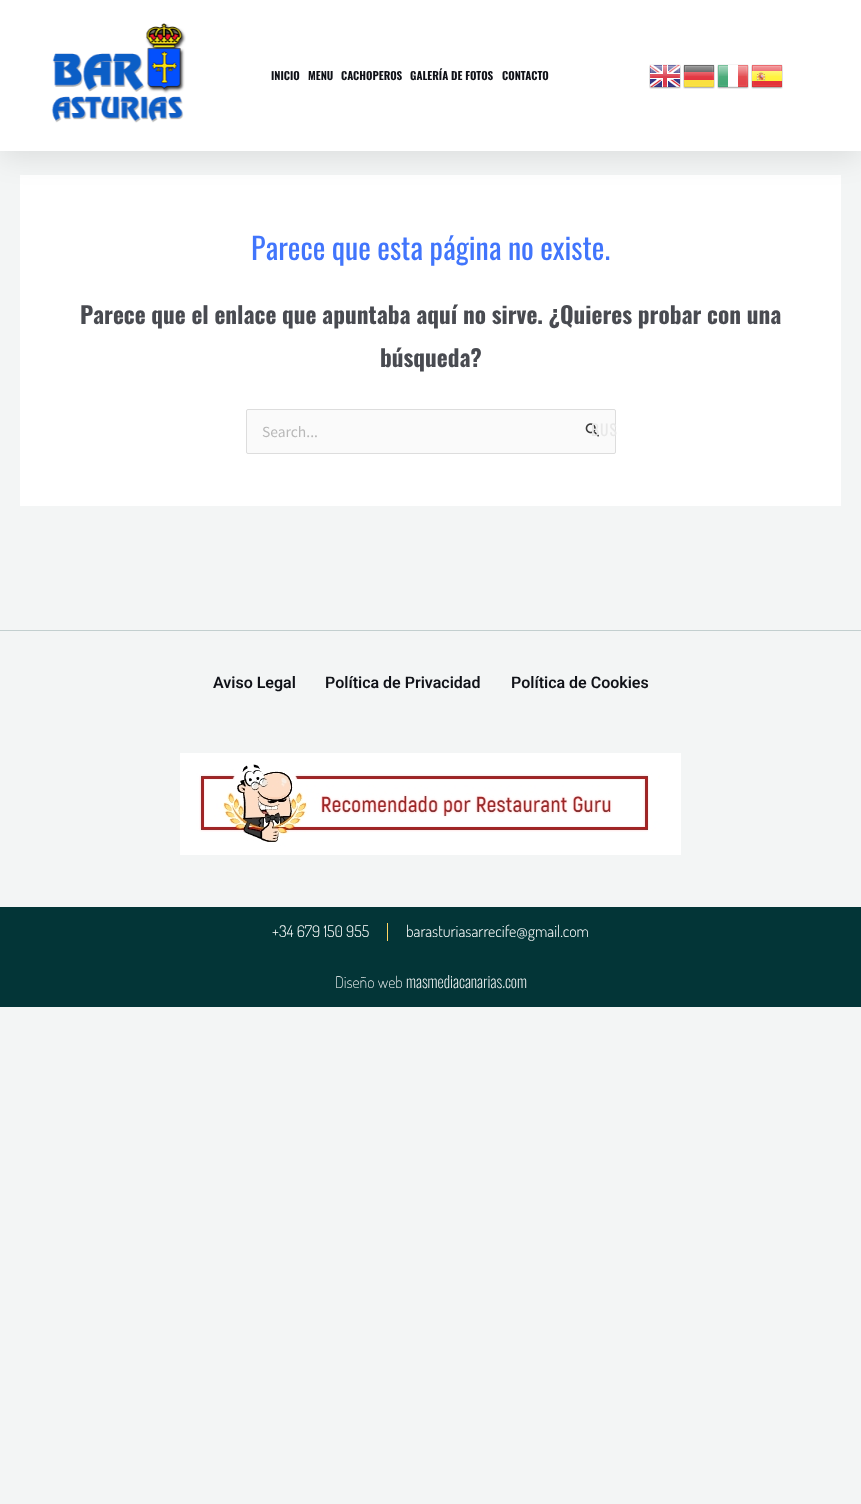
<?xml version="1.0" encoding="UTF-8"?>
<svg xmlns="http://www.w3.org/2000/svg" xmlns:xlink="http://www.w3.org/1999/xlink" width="861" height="1504">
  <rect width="100%" height="100%" fill="#f3f5f5" />
  <rect x="20" y="175" width="821" height="331" fill="#ffffff" />
  <rect y="5" width="861" height="151" fill="#000000" fill-opacity="0.1" filter="blur(15px)" />
  <rect width="861" height="151" fill="#ffffff" />
  <image x="51" y="23" width="135" height="100" xlink:href="image1.png" />
  <image x="649" y="64" width="32" height="25" xlink:href="image2.png" />
  <image x="683" y="64" width="32" height="25" xlink:href="image3.png" />
  <image x="717" y="64" width="32" height="25" xlink:href="image4.png" />
  <image x="751" y="64" width="32" height="25" xlink:href="image5.png" />
  <rect x="246.5" y="409.5" width="369" height="44" rx="1.5" fill="#fafafa" stroke="#dddddd" />
  <image x="585" y="423" width="14" height="14" xlink:href="image6.png" />
  <rect y="630" width="861" height="1" fill="#c3cfcf" />
  <image x="180" y="753" width="501" height="102" xlink:href="image7.png" />
  <rect y="907" width="861" height="100" fill="#033537" />
  <rect x="387" y="923" width="1" height="18" fill="#ffd664" />
  <text x="271" y="80" style="font-family: Oswald; font-size: 11px; font-weight: bold; fill: #101218">INICIO</text>
  <text x="308" y="80" style="font-family: Oswald; font-size: 11px; font-weight: bold; fill: #101218">MENU</text>
  <text x="341" y="80" style="font-family: Oswald; font-size: 11px; font-weight: bold; fill: #101218">CACHOPEROS</text>
  <text x="410" y="80" style="font-family: Oswald; font-size: 11px; font-weight: bold; fill: #101218">GALERÍA DE FOTOS</text>
  <text x="502" y="80" style="font-family: Oswald; font-size: 11px; font-weight: bold; fill: #101218">CONTACTO</text>
  <text x="251" y="260" word-spacing="-0.5" style="font-family: Oswald; font-size: 30px; fill: #4175fc">Parece que esta página no existe.</text>
  <text x="80" y="324" word-spacing="-0.25" style="font-family: Oswald; font-size: 23.25px; font-weight: bold; fill: #494b51">Parece que el enlace que apuntaba aquí no sirve. ¿Quieres probar con una</text>
  <text x="380" y="367" style="font-family: Oswald; font-size: 23.25px; font-weight: bold; fill: #494b51">búsqueda?</text>
  <text x="262" y="437" style="font-family: Source Sans Pro; font-size: 15.5px; fill: #b8b8b8">Search...</text>
  <text x="591" y="436" style="font-family: Oswald; font-size: 15.5px; letter-spacing: 1px; fill: #e8e8e8">BUS</text>
  <text x="213" y="688" style="font-family: Roboto; font-size: 16px; font-weight: 600; fill: #101218">Aviso Legal</text>
  <text x="325" y="688" style="font-family: Roboto; font-size: 16px; font-weight: 600; fill: #101218">Política de Privacidad</text>
  <text x="511" y="688" style="font-family: Roboto; font-size: 16px; font-weight: 600; fill: #101218">Política de Cookies</text>
  <text x="272" y="937" style="font-family: Dosis; font-size: 16px; font-weight: 300; fill: #ffffff">+34 679 150 955</text>
  <text x="406" y="937" style="font-family: Dosis; font-size: 16px; font-weight: 300; fill: #ffffff">barasturiasarrecife@gmail.com</text>
  <text x="335" y="988" style="font-family: Dosis; font-size: 16px; font-weight: 200; fill: #ffffff">Diseño web</text>
  <text x="406" y="988" style="font-family: Oswald; font-size: 16px; font-weight: 200; fill: #ffffff">masmediacanarias.com</text>
</svg>
